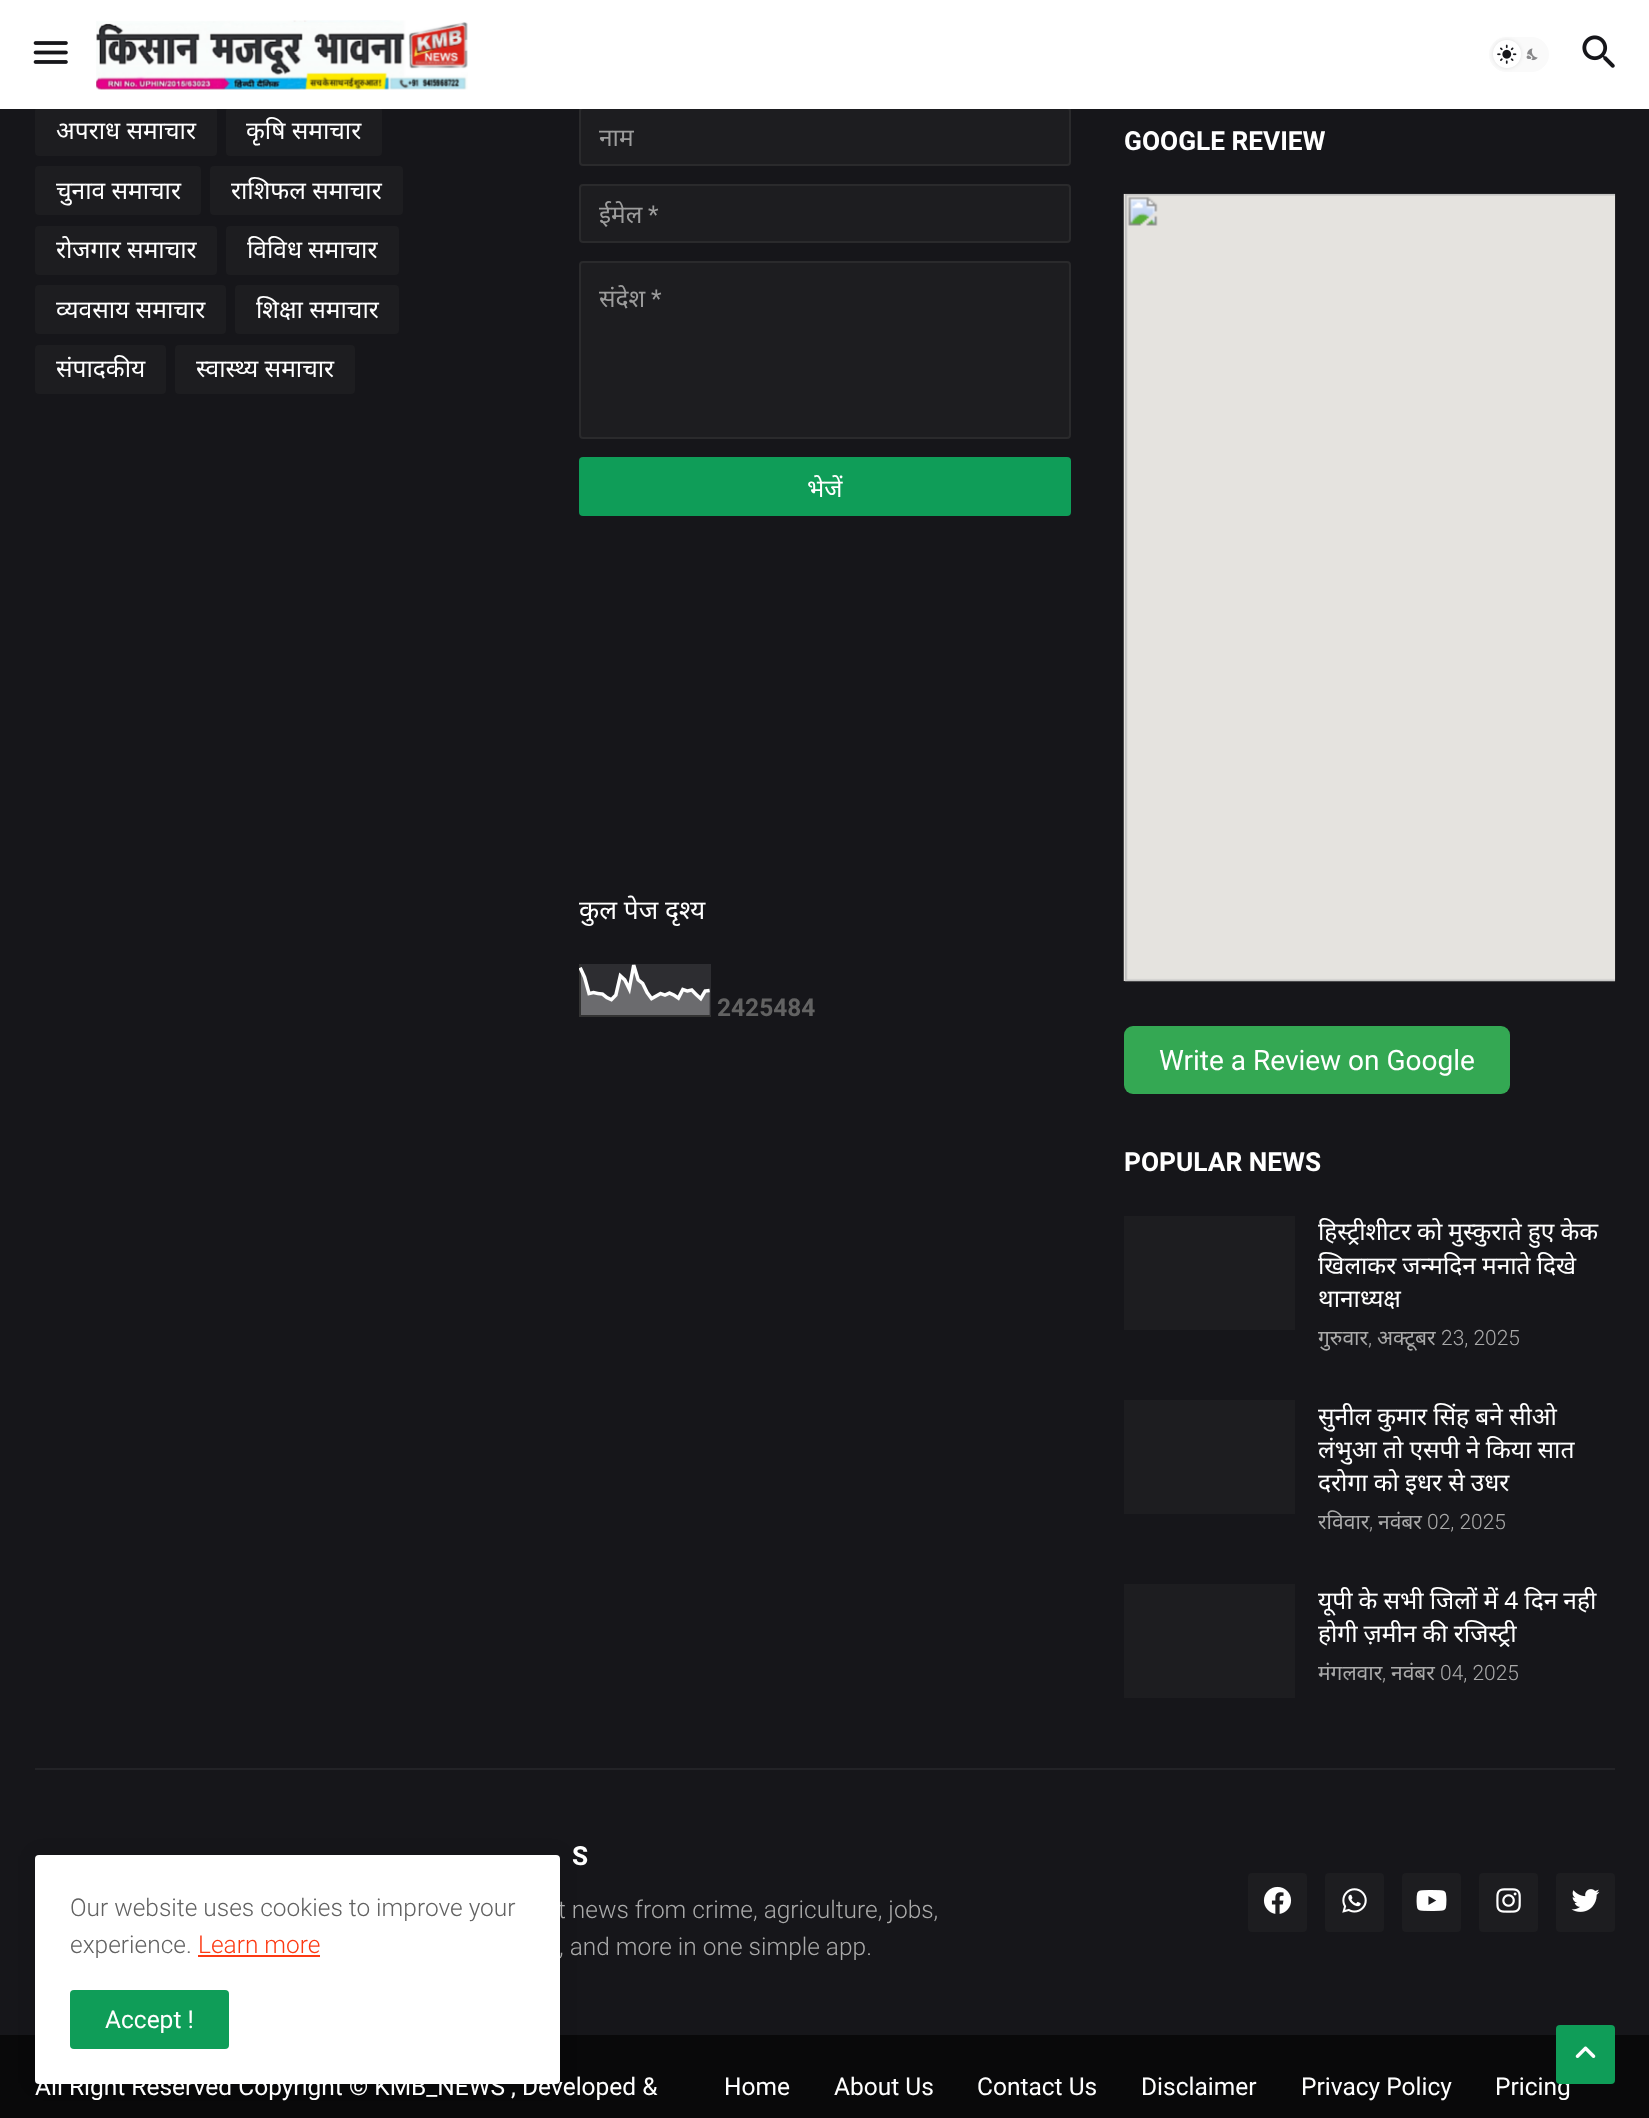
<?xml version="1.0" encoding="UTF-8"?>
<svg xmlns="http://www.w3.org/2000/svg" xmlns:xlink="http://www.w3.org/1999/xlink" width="1649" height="2118">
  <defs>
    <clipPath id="clip1"><rect x="599" y="119" width="453" height="33" /></clipPath>
    <clipPath id="clip2"><rect x="599" y="196" width="453" height="33" /></clipPath>
  </defs>
  <rect width="100%" height="100%" fill="#16161a" />
  <rect x="35" y="107" width="182" height="49" rx="4" fill="#1d1d20" />
  <rect x="226" y="107" width="156" height="49" rx="4" fill="#1d1d20" />
  <rect x="580" y="108" width="490" height="57" rx="3" fill="#1d1d20" stroke="#2a2a2c" stroke-width="2" />
  <rect width="1649" height="109" fill="#ffffff" />
  <image x="33" y="41" width="35" height="23" xlink:href="image1.png" />
  <image x="96" y="20" width="372" height="70" xlink:href="image2.png" />
  <rect x="1489" y="37" width="60" height="35" rx="17.5" fill="#fafafa" />
  <image x="1526" y="48" width="12" height="13" xlink:href="image4.png" />
  <rect x="1493" y="40" width="28" height="28" rx="14" fill="#000000" fill-opacity="0.1" filter="blur(2px)" />
  <circle cx="1507" cy="54" r="14" fill="#ffffff" />
  <image x="1497" y="44" width="20" height="20" xlink:href="image3.png" />
  <image x="1582" y="35" width="33" height="33" xlink:href="image5.png" />
  <rect x="35" y="1768" width="1580" height="2" fill="#232327" />
  <rect x="35" y="166" width="166" height="49" rx="4" fill="#1d1d20" />
  <rect x="210" y="166" width="193" height="49" rx="4" fill="#1d1d20" />
  <rect x="35" y="226" width="182" height="49" rx="4" fill="#1d1d20" />
  <rect x="226" y="226" width="173" height="49" rx="4" fill="#1d1d20" />
  <rect x="35" y="285" width="191" height="49" rx="4" fill="#1d1d20" />
  <rect x="235" y="285" width="164" height="49" rx="4" fill="#1d1d20" />
  <rect x="35" y="345" width="131" height="49" rx="4" fill="#1d1d20" />
  <rect x="175" y="345" width="180" height="49" rx="4" fill="#1d1d20" />
  <rect x="580" y="185" width="490" height="57" rx="3" fill="#1d1d20" stroke="#2a2a2c" stroke-width="2" />
  <rect x="580" y="262" width="490" height="176" rx="3" fill="#1d1d20" stroke="#2a2a2c" stroke-width="2" />
  <rect x="579" y="457" width="492" height="59" rx="4" fill="#0f9d58" />
  <image x="579" y="964" width="132" height="53" xlink:href="image6.png" />
  <image x="1123" y="193" width="493" height="789" xlink:href="image7.png" />
  <rect x="1124" y="1026" width="386" height="68" rx="9" fill="#34a853" />
  <rect x="1124" y="1216" width="171" height="114" fill="#1d1d20" />
  <rect x="1124" y="1400" width="171" height="114" fill="#1d1d20" />
  <rect x="1124" y="1584" width="171" height="114" fill="#1d1d20" />
  <rect x="1248" y="1873" width="59" height="59" rx="4" fill="#1d1d20" />
  <image x="1263" y="1886" width="29" height="28" xlink:href="image8.png" />
  <rect x="1325" y="1873" width="59" height="59" rx="4" fill="#1d1d20" />
  <image x="1342" y="1888" width="25" height="25" xlink:href="image9.png" />
  <rect x="1402" y="1873" width="59" height="59" rx="4" fill="#1d1d20" />
  <image x="1416" y="1890" width="31" height="21" xlink:href="image10.png" />
  <rect x="1479" y="1873" width="59" height="59" rx="4" fill="#1d1d20" />
  <image x="1496" y="1888" width="25" height="25" xlink:href="image11.png" />
  <rect x="1556" y="1873" width="59" height="59" rx="4" fill="#1d1d20" />
  <image x="1571" y="1889" width="29" height="23" xlink:href="image12.png" />
  <rect y="2035" width="1649" height="83" fill="#09090a" />
  <rect x="35" y="1855" width="525" height="229" rx="4" fill="#000000" fill-opacity="0.1" filter="blur(9px)" />
  <text x="56" y="139" style="font-family: Noto Sans; font-size: 24.5px; fill: #ffffff">अपराध समाचार</text>
  <text x="246" y="139" style="font-family: Noto Sans; font-size: 24.5px; fill: #ffffff">कृषि समाचार</text>
  <text x="56" y="199" style="font-family: Noto Sans; font-size: 24.5px; fill: #ffffff">चुनाव समाचार</text>
  <text x="231" y="199" style="font-family: Noto Sans; font-size: 24.5px; fill: #ffffff">राशिफल समाचार</text>
  <text x="56" y="258" style="font-family: Noto Sans; font-size: 24.5px; fill: #ffffff">रोजगार समाचार</text>
  <text x="247" y="258" style="font-family: Noto Sans; font-size: 24.5px; fill: #ffffff">विविध</text>
  <text x="308" y="258" style="font-family: Noto Sans; font-size: 24.5px; fill: #ffffff">समाचार</text>
  <text x="56" y="318" style="font-family: Noto Sans; font-size: 24.5px; fill: #ffffff">व्यवसाय समाचार</text>
  <text x="256" y="318" style="font-family: Noto Sans; font-size: 24.5px; fill: #ffffff">शिक्षा समाचार</text>
  <text x="56" y="377" style="font-family: Noto Sans; font-size: 24.5px; fill: #ffffff">संपादकीय</text>
  <text x="196" y="377" style="font-family: Noto Sans; font-size: 24.5px; fill: #ffffff">स्वास्थ्य समाचार</text>
  <g clip-path="url(#clip1)">
    <text x="599" y="146" style="font-family: Noto Sans; font-size: 24.5px; fill: #9c9c9c">नाम</text>
  </g>
  <g clip-path="url(#clip2)">
    <text x="599" y="223" style="font-family: Noto Sans; font-size: 24.5px; fill: #9c9c9c">ईमेल</text>
  </g>
  <text x="648" y="223" style="font-family: Roboto; font-size: 24.5px; fill: #9c9c9c">*</text>
  <text x="599" y="307" style="font-family: Noto Sans; font-size: 24.5px; fill: #9c9c9c">संदेश</text>
  <text x="651" y="307" style="font-family: Roboto; font-size: 24.5px; fill: #9c9c9c">*</text>
  <text x="807" y="497" style="font-family: Noto Sans; font-size: 24.5px; fill: #ffffff">भेजें</text>
  <text x="579" y="919" style="font-family: Noto Sans; font-size: 26.25px; fill: #ffffff">कुल पेज दृश्य</text>
  <text x="717" y="1016" style="font-family: Roboto; font-size: 24.5px; font-weight: bold; fill: #626262">2425484</text>
  <text x="1124" y="150" style="font-family: Roboto; font-size: 26.25px; font-weight: bold; fill: #ffffff">GOOGLE REVIEW</text>
  <text x="1159" y="1070" style="font-family: Roboto; font-size: 28px; fill: #ffffff">Write a Review on Google</text>
  <text x="1124" y="1171" style="font-family: Roboto; font-size: 26.25px; font-weight: bold; fill: #ffffff">POPULAR NEWS</text>
  <text x="1318" y="1240" word-spacing="-0.25" style="font-family: Noto Sans; font-size: 24.5px; fill: #ffffff">हिस्ट्रीशीटर को मुस्कुराते हुए केक</text>
  <text x="1318" y="1274" word-spacing="-0.25" style="font-family: Noto Sans; font-size: 24.5px; fill: #ffffff">खिलाकर जन्मदिन मनाते दिखे</text>
  <text x="1318" y="1307" style="font-family: Noto Sans; font-size: 24.5px; fill: #ffffff">थानाध्यक्ष</text>
  <text x="1318" y="1345" style="font-family: Noto Sans; font-size: 21px; fill: #aaaaaa">गुरुवार</text>
  <text x="1368" y="1345" style="font-family: Roboto; font-size: 21px; font-weight: 300; fill: #aaaaaa">,</text>
  <text x="1377" y="1345" style="font-family: Noto Sans; font-size: 21px; fill: #aaaaaa">अक्टूबर</text>
  <text x="1441" y="1345" style="font-family: Roboto; font-size: 21px; font-weight: 300; fill: #aaaaaa">23, 2025</text>
  <text x="1318" y="1425" word-spacing="-0.25" style="font-family: Noto Sans; font-size: 24.5px; fill: #ffffff">सुनील कुमार सिंह बने सीओ</text>
  <text x="1318" y="1458" word-spacing="-0.25" style="font-family: Noto Sans; font-size: 24.5px; fill: #ffffff">लंभुआ तो एसपी ने किया सात</text>
  <text x="1318" y="1491" word-spacing="-0.25" style="font-family: Noto Sans; font-size: 24.5px; fill: #ffffff">दरोगा को इधर से उधर</text>
  <text x="1318" y="1529" style="font-family: Noto Sans; font-size: 21px; fill: #aaaaaa">रविवार</text>
  <text x="1369" y="1529" style="font-family: Roboto; font-size: 21px; font-weight: 300; fill: #aaaaaa">,</text>
  <text x="1378" y="1529" style="font-family: Noto Sans; font-size: 21px; fill: #aaaaaa">नवंबर</text>
  <text x="1427" y="1529" style="font-family: Roboto; font-size: 21px; font-weight: 300; fill: #aaaaaa">02, 2025</text>
  <text x="1318" y="1609" word-spacing="-0.25" style="font-family: Noto Sans; font-size: 24.5px; fill: #ffffff">यूपी के सभी जिलों में 4 दिन नही</text>
  <text x="1318" y="1642" word-spacing="-0.25" style="font-family: Noto Sans; font-size: 24.5px; fill: #ffffff">होगी ज़मीन की रजिस्ट्री</text>
  <text x="1318" y="1680" style="font-family: Noto Sans; font-size: 21px; fill: #aaaaaa">मंगलवार</text>
  <text x="1382" y="1680" style="font-family: Roboto; font-size: 21px; font-weight: 300; fill: #aaaaaa">,</text>
  <text x="1391" y="1680" style="font-family: Noto Sans; font-size: 21px; fill: #aaaaaa">नवंबर</text>
  <text x="1440" y="1680" style="font-family: Roboto; font-size: 21px; font-weight: 300; fill: #aaaaaa">04, 2025</text>
  <text x="572" y="1865" style="font-family: Roboto; font-size: 26.25px; font-weight: bold; fill: #ffffff">S</text>
  <text x="558" y="1918" style="font-family: Roboto; font-size: 24.5px; font-weight: 300; fill: #aaaaaa">t news from crime, agriculture, jobs,</text>
  <text x="559" y="1955" style="font-family: Roboto; font-size: 24.5px; font-weight: 300; fill: #aaaaaa">, and more in one simple app.</text>
  <text x="35" y="2095" style="font-family: Roboto; font-size: 24.5px; fill: #ffffff">All Right Reserved Copyright © KMB_NEWS , Developed &amp;</text>
  <text x="724" y="2095" style="font-family: Roboto; font-size: 24.5px; fill: #ffffff">Home</text>
  <text x="834" y="2095" style="font-family: Roboto; font-size: 24.5px; fill: #ffffff">About Us</text>
  <text x="977" y="2095" style="font-family: Roboto; font-size: 24.5px; fill: #ffffff">Contact Us</text>
  <text x="1141" y="2095" style="font-family: Roboto; font-size: 24.5px; fill: #ffffff">Disclaimer</text>
  <text x="1301" y="2095" style="font-family: Roboto; font-size: 24.5px; fill: #ffffff">Privacy Policy</text>
  <text x="1495" y="2095" style="font-family: Roboto; font-size: 24.5px; fill: #ffffff">Pricing</text>
  <rect x="35" y="1855" width="525" height="229" rx="4" fill="#ffffff" />
  <text x="70" y="1916" style="font-family: Roboto; font-size: 24.5px; font-weight: 300; fill: #626262">Our website uses cookies to improve your</text>
  <text x="70" y="1953" style="font-family: Roboto; font-size: 24.5px; font-weight: 300; fill: #626262">experience.</text>
  <text x="198" y="1953" style="font-family: Roboto; font-size: 24.5px; font-weight: 300; fill: #fd3a13">Learn more</text>
  <rect x="198" y="1955" width="122" height="2" fill="#fd3a13" />
  <rect x="70" y="1990" width="159" height="59" rx="4" fill="#0f9d58" />
  <text x="105" y="2028" style="font-family: Roboto; font-size: 24.5px; fill: #ffffff">Accept !</text>
  <rect x="1556" y="2025" width="59" height="59" rx="4" fill="#0f9d58" />
  <image x="1575" y="2046" width="21" height="12" xlink:href="image13.png" />
</svg>
